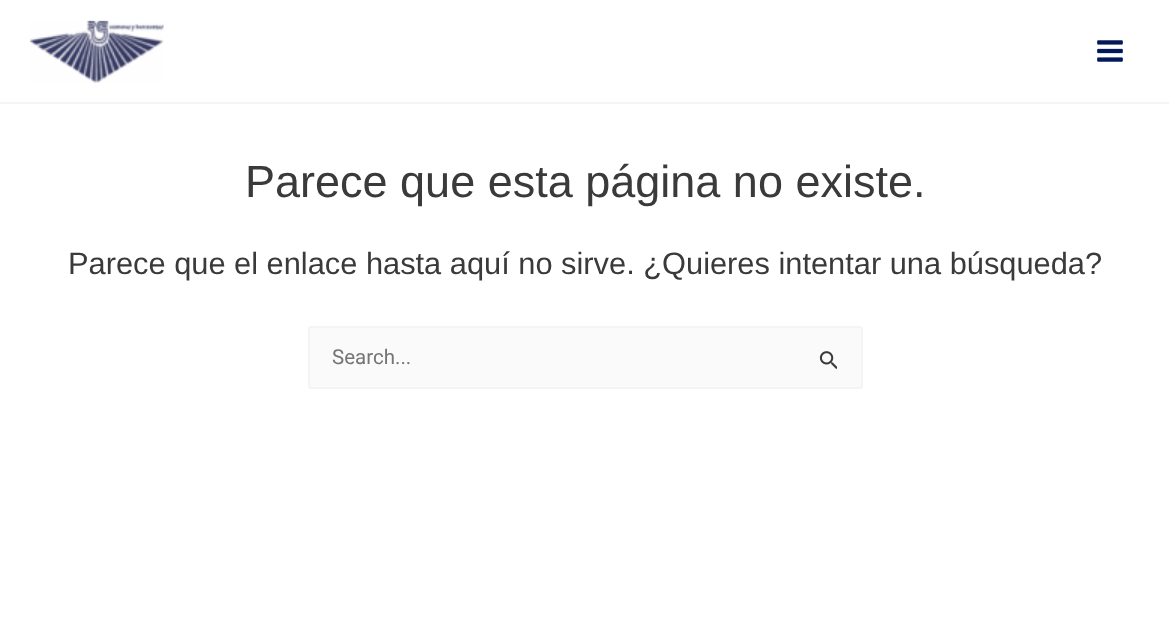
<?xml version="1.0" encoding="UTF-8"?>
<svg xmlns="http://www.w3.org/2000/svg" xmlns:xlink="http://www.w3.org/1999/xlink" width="1169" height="634">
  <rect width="100%" height="100%" fill="#ffffff" />
  <rect y="102" width="1169" height="2" fill="#f2f5f7" />
  <image x="30" y="20" width="134" height="63" xlink:href="image1.png" />
  <image x="1097" y="40" width="26" height="22" xlink:href="image2.png" />
  <rect x="309" y="327" width="553" height="61" rx="2" fill="#fafafa" stroke="#f2f5f7" stroke-width="2" />
  <image x="819" y="351" width="18" height="18" xlink:href="image3.png" />
  <text x="245" y="197" style="font-family: Liberation Sans; font-size: 45px; fill: #3a3a3a">Parece que esta página no existe.</text>
  <text x="68" y="274" style="font-family: Liberation Sans; font-size: 30.8px; fill: #3a3a3a">Parece que el enlace hasta aquí no sirve. ¿Quieres intentar una búsqueda?</text>
  <text x="332" y="364" style="font-family: Roboto; font-size: 20.5px; fill: #757575">Search...</text>
</svg>
